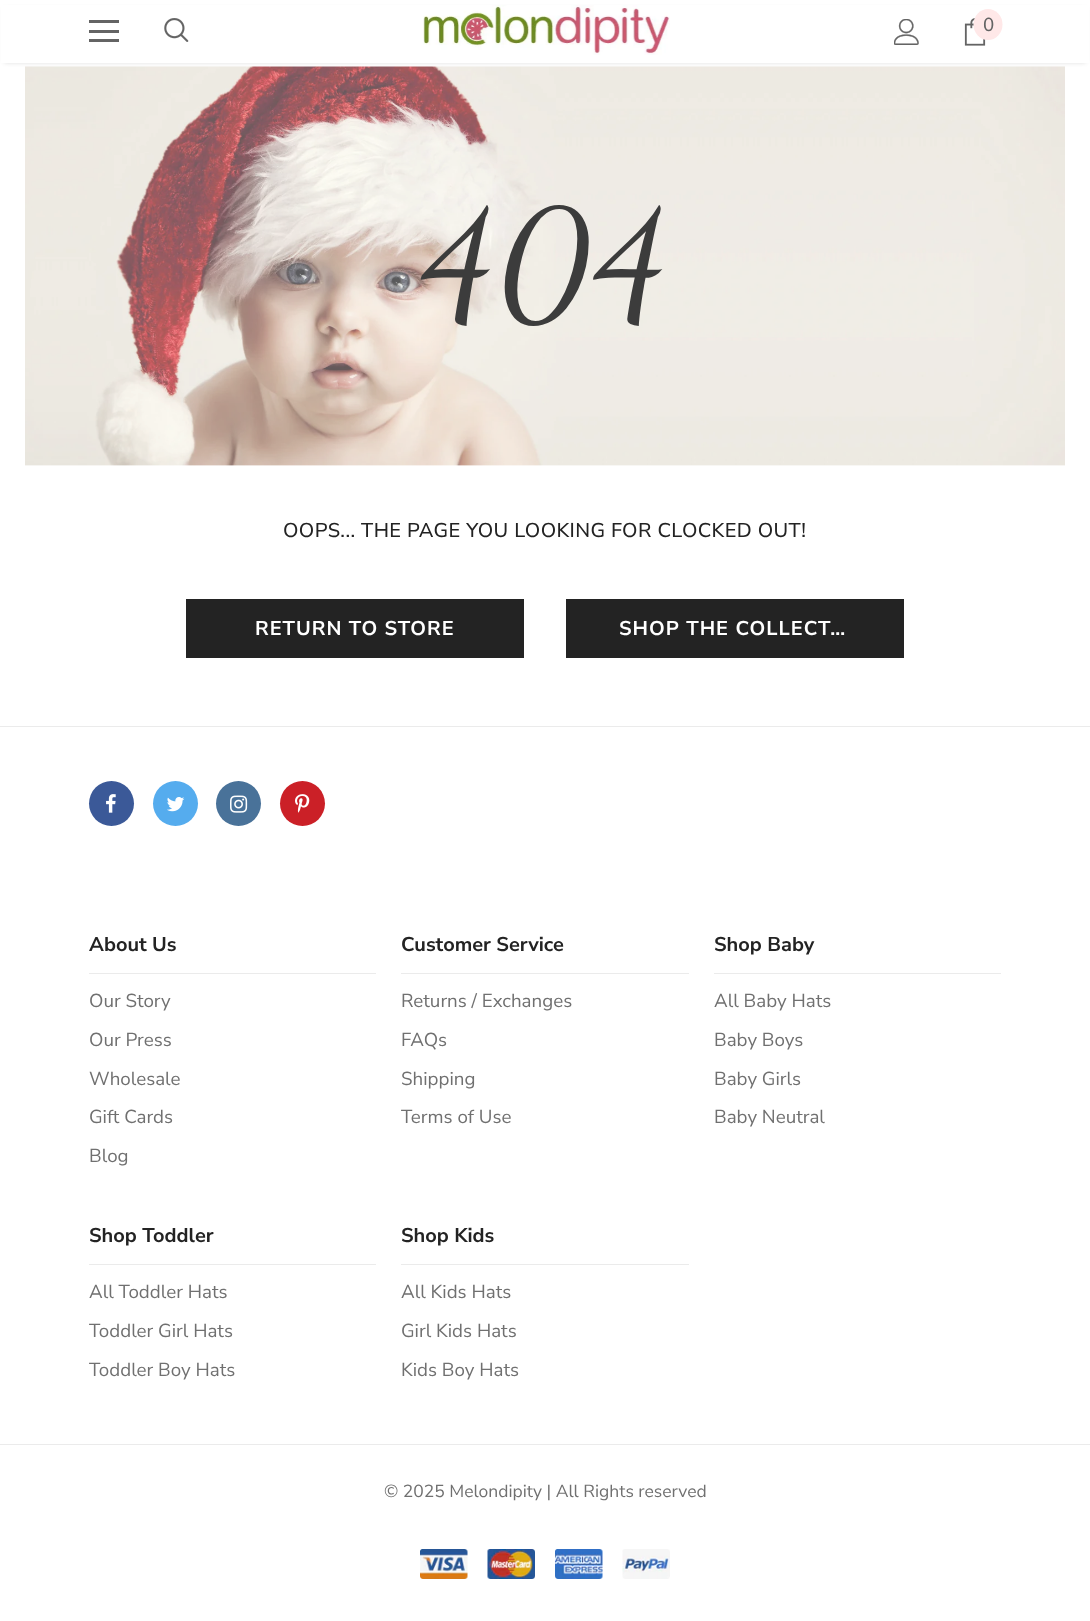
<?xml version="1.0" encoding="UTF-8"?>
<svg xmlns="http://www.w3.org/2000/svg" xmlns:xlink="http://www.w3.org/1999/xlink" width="1090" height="1621">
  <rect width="100%" height="100%" fill="#ffffff" />
  <image x="25" y="66" width="1040" height="400" xlink:href="image5.png" />
  <rect x="4" y="8" width="1082" height="55" fill="#000000" fill-opacity="0.12" filter="blur(2px)" />
  <rect x="1" y="5" width="1088" height="58" fill="#ffffff" />
  <rect x="89" y="20" width="30" height="3" fill="#646464" />
  <rect x="89" y="30" width="30" height="3" fill="#646464" />
  <rect x="89" y="39" width="30" height="3" fill="#646464" />
  <image x="164" y="18" width="25" height="24" xlink:href="image1.png" />
  <image x="423" y="5" width="247" height="50" xlink:href="image2.png" />
  <image x="894" y="19" width="25" height="26" xlink:href="image3.png" />
  <image x="964" y="18" width="22" height="28" xlink:href="image4.png" />
  <ellipse cx="988" cy="24.5" rx="14.5" ry="15.5" fill="#ffe8e8" />
  <rect x="186" y="599" width="338" height="59" fill="#232323" />
  <rect x="566" y="599" width="338" height="59" fill="#232323" />
  <rect y="726" width="1090" height="1" fill="#ebebeb" />
  <circle cx="111.5" cy="803.5" r="22.5" fill="#3b5998" />
  <image x="106" y="794" width="10" height="19" xlink:href="image6.png" />
  <circle cx="175.5" cy="803.5" r="22.5" fill="#55acee" />
  <image x="167" y="797" width="18" height="15" xlink:href="image7.png" />
  <circle cx="238.5" cy="803.5" r="22.5" fill="#497299" />
  <image x="230" y="795" width="18" height="18" xlink:href="image8.png" />
  <circle cx="302.5" cy="803.5" r="22.5" fill="#cb2027" />
  <image x="295" y="794" width="15" height="19" xlink:href="image9.png" />
  <rect x="89" y="973" width="287" height="1" fill="#ebebeb" />
  <rect x="401" y="973" width="288" height="1" fill="#ebebeb" />
  <rect x="714" y="973" width="287" height="1" fill="#ebebeb" />
  <rect x="89" y="1264" width="287" height="1" fill="#ebebeb" />
  <rect x="401" y="1264" width="288" height="1" fill="#ebebeb" />
  <rect y="1444" width="1090" height="1" fill="#ebebeb" />
  <image x="420" y="1549" width="48" height="30" xlink:href="image10.png" />
  <image x="487" y="1549" width="48" height="30" xlink:href="image11.png" />
  <image x="555" y="1549" width="48" height="30" xlink:href="image12.png" />
  <image x="622" y="1549" width="48" height="30" xlink:href="image13.png" />
  <text x="983" y="31" style="font-family: Nunito Sans; font-size: 18.75px; font-weight: 500; fill: #646464">0</text>
  <text x="422" y="313" style="font-family: Dancing Script; font-size: 150px; letter-spacing: 3px; fill: #3c3c3c">404</text>
  <text x="283" y="537" style="font-family: Nunito Sans; font-size: 20px; font-weight: 500; letter-spacing: 0.4px; fill: #232323">OOPS... THE PAGE YOU LOOKING FOR CLOCKED OUT!</text>
  <text x="255" y="635" style="font-family: Nunito Sans; font-size: 20px; font-weight: bold; letter-spacing: 1px; fill: #ffffff">RETURN TO STORE</text>
  <text x="619" y="635" style="font-family: Nunito Sans; font-size: 20px; font-weight: bold; letter-spacing: 1px; fill: #ffffff">SHOP THE COLLECT…</text>
  <text x="89" y="951" style="font-family: Nunito Sans; font-size: 20px; font-weight: bold; fill: #232323">About Us</text>
  <text x="89" y="1007" style="font-family: Nunito Sans; font-size: 18.75px; fill: #707070">Our Story</text>
  <text x="89" y="1046" style="font-family: Nunito Sans; font-size: 18.75px; fill: #707070">Our Press</text>
  <text x="89" y="1085" style="font-family: Nunito Sans; font-size: 18.75px; fill: #707070">Wholesale</text>
  <text x="89" y="1123" style="font-family: Nunito Sans; font-size: 18.75px; fill: #707070">Gift Cards</text>
  <text x="89" y="1162" style="font-family: Nunito Sans; font-size: 18.75px; fill: #707070">Blog</text>
  <text x="401" y="951" style="font-family: Nunito Sans; font-size: 20px; font-weight: bold; fill: #232323">Customer Service</text>
  <text x="401" y="1007" style="font-family: Nunito Sans; font-size: 18.75px; fill: #707070">Returns / Exchanges</text>
  <text x="401" y="1046" style="font-family: Nunito Sans; font-size: 18.75px; fill: #707070">FAQs</text>
  <text x="401" y="1085" style="font-family: Nunito Sans; font-size: 18.75px; fill: #707070">Shipping</text>
  <text x="401" y="1123" style="font-family: Nunito Sans; font-size: 18.75px; fill: #707070">Terms of Use</text>
  <text x="714" y="951" style="font-family: Nunito Sans; font-size: 20px; font-weight: bold; fill: #232323">Shop Baby</text>
  <text x="714" y="1007" style="font-family: Nunito Sans; font-size: 18.75px; fill: #707070">All Baby Hats</text>
  <text x="714" y="1046" style="font-family: Nunito Sans; font-size: 18.75px; fill: #707070">Baby Boys</text>
  <text x="714" y="1085" style="font-family: Nunito Sans; font-size: 18.75px; fill: #707070">Baby Girls</text>
  <text x="714" y="1123" style="font-family: Nunito Sans; font-size: 18.75px; fill: #707070">Baby Neutral</text>
  <text x="89" y="1242" style="font-family: Nunito Sans; font-size: 20px; font-weight: bold; fill: #232323">Shop Toddler</text>
  <text x="89" y="1298" style="font-family: Nunito Sans; font-size: 18.75px; fill: #707070">All Toddler Hats</text>
  <text x="89" y="1337" style="font-family: Nunito Sans; font-size: 18.75px; fill: #707070">Toddler Girl Hats</text>
  <text x="89" y="1376" style="font-family: Nunito Sans; font-size: 18.75px; fill: #707070">Toddler Boy Hats</text>
  <text x="401" y="1242" style="font-family: Nunito Sans; font-size: 20px; font-weight: bold; fill: #232323">Shop Kids</text>
  <text x="401" y="1298" style="font-family: Nunito Sans; font-size: 18.75px; fill: #707070">All Kids Hats</text>
  <text x="401" y="1337" style="font-family: Nunito Sans; font-size: 18.75px; fill: #707070">Girl Kids Hats</text>
  <text x="401" y="1376" style="font-family: Nunito Sans; font-size: 18.75px; fill: #707070">Kids Boy Hats</text>
  <text x="384" y="1497" style="font-family: Nunito Sans; font-size: 17.5px; fill: #707070">© 2025 Melondipity | All Rights reserved</text>
</svg>
